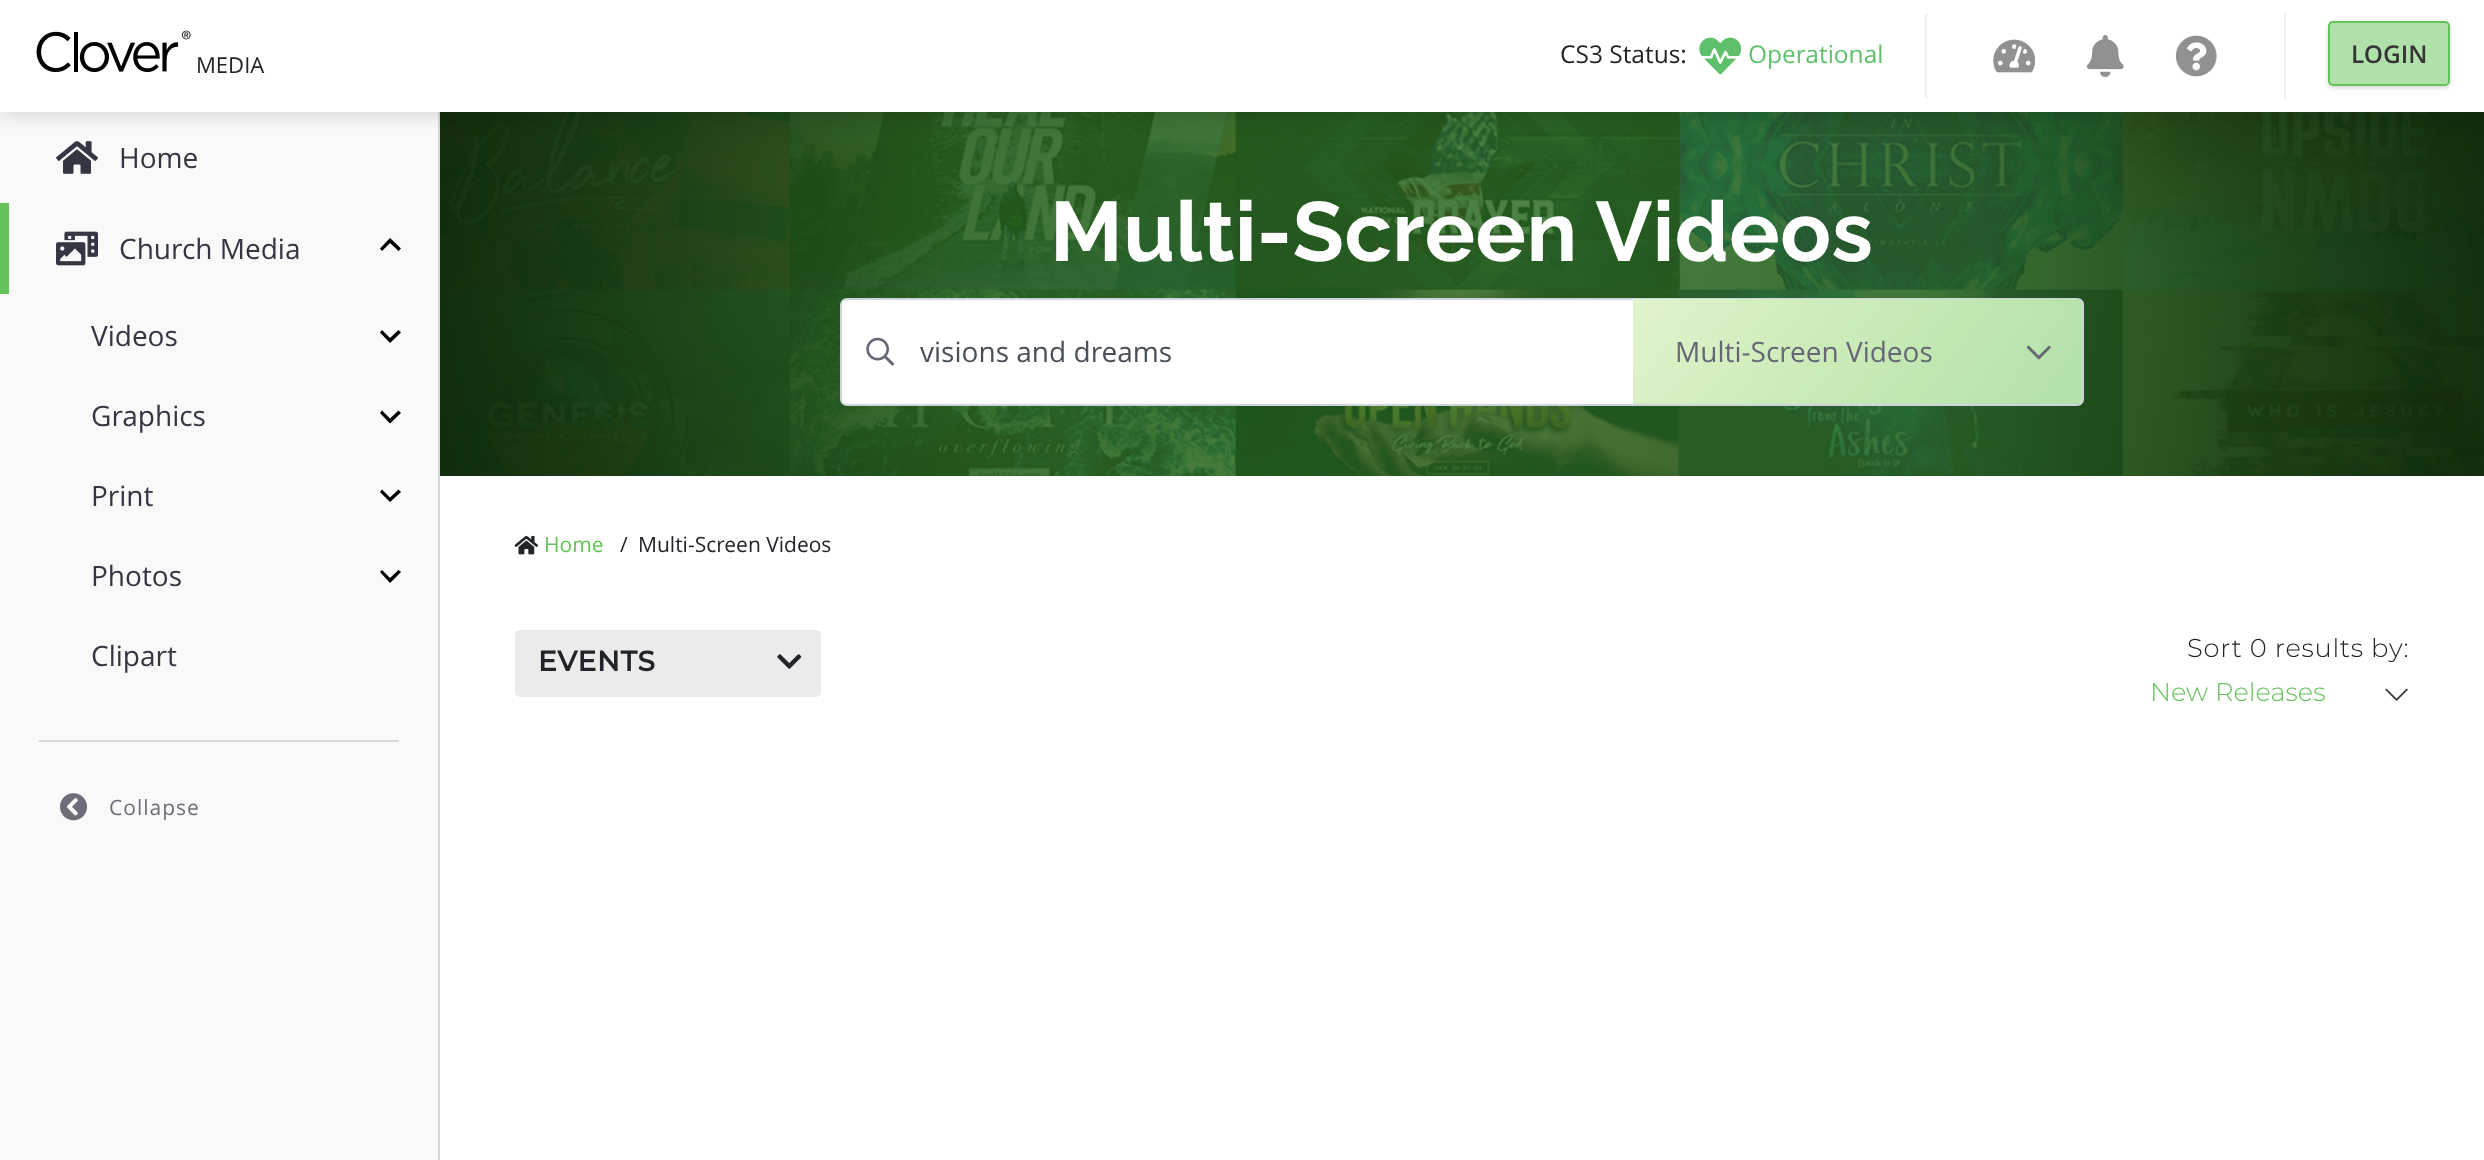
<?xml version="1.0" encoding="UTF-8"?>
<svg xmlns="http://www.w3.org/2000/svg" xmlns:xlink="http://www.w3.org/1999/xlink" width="2484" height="1160">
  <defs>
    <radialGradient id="g1" gradientUnits="userSpaceOnUse" cx="1462" cy="294" r="1558"><stop offset="0.33" stop-color="#000000" stop-opacity="0" /><stop offset="1" stop-color="#000000" /></radialGradient>
    <clipPath id="clip1"><path d="M 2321 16 h 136 v 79 h -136 z m 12 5 h 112 c 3 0 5 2 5 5 v 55 c 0 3 -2 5 -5 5 h -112 c -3 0 -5 -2 -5 -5 v -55 c 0 -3 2 -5 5 -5 z" clip-rule="evenodd" /></clipPath>
    <linearGradient id="g2" gradientUnits="userSpaceOnUse" x1="1689" y1="225" x2="2026" y2="479"><stop offset="0" stop-color="#64c308" stop-opacity="0.2" /><stop offset="1" stop-color="#64c358" stop-opacity="0.5" /></linearGradient>
  </defs>
  <rect width="100%" height="100%" fill="#ffffff" />
  <rect y="112" width="438" height="1048" fill="#f9f9f9" />
  <rect x="438" y="112" width="2" height="1048" fill="#d8d8d8" />
  <image x="56" y="141" width="42" height="33" xlink:href="image6.png" />
  <rect y="203" width="9" height="91" fill="#64c358" />
  <image x="56" y="231" width="42" height="35" xlink:href="image7.png" />
  <path d="M 382 251 l 8 -8 l 8.5 8 l 2.5 -2.5 l -11 -10.5 l -10 10.5 z" fill="#000000" />
  <path d="M 382 330 l 8 8 l 8.5 -8 l 2.5 2.5 l -11 10.5 l -10 -10.5 z" fill="#000000" />
  <path d="M 382 410.5 l 8 8 l 8.5 -8 l 2.5 2.5 l -11 10.5 l -10 -10.5 z" fill="#000000" />
  <path d="M 382 489.5 l 8 8 l 8.5 -8 l 2.5 2.5 l -11 10 l -10 -10 z" fill="#000000" />
  <path d="M 382 570 l 8 8 l 8.5 -8 l 2.5 2 l -11 11 l -10 -11 z" fill="#000000" />
  <rect x="39" y="740" width="360" height="2" fill="#d8d8d8" />
  <image x="60" y="793" width="28" height="28" xlink:href="image8.png" />
  <image x="440" y="112" width="2044" height="364" xlink:href="image9.png" />
  <image x="514" y="535" width="25" height="20" xlink:href="image12.png" />
  <rect x="515" y="630" width="306" height="67" rx="5" fill="#ebebeb" />
  <image x="777" y="654" width="25" height="15" xlink:href="image13.png" />
  <image x="2385" y="688" width="23" height="13" xlink:href="image14.png" />
  <text x="119" y="168" style="font-family: Open Sans; font-size: 28px; fill: #353643">Home</text>
  <text x="119" y="259" style="font-family: Open Sans; font-size: 28px; fill: #353643">Church Media</text>
  <text x="91" y="346" style="font-family: Open Sans; font-size: 28px; fill: #353643">Videos</text>
  <text x="91" y="426" style="font-family: Open Sans; font-size: 28px; fill: #353643">Graphics</text>
  <text x="91" y="506" style="font-family: Open Sans; font-size: 28px; fill: #353643">Print</text>
  <text x="91" y="586" style="font-family: Open Sans; font-size: 28px; fill: #353643">Photos</text>
  <text x="91" y="666" style="font-family: Open Sans; font-size: 28px; fill: #353643">Clipart</text>
  <text x="109" y="815" style="font-family: Open Sans; font-size: 21px; letter-spacing: 1px; fill: #6e6c79">Collapse</text>
  <text x="1050" y="261" style="font-family: Raleway; font-size: 84px; font-weight: bold; letter-spacing: 0.5px; fill: #ffffff">Multi-Screen Videos</text>
  <rect x="440" y="112" width="2044" height="364" fill="url(#g1)" />
  <rect y="4" width="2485" height="112" fill="#000000" fill-opacity="0.13" filter="blur(9px)" />
  <rect width="2484" height="112" fill="#ffffff" />
  <g clip-path="url(#clip1)">
    <rect x="2328" y="23" width="122" height="65" rx="5" fill="#000000" fill-opacity="0.16" filter="blur(2px)" />
  </g>
  <rect x="2329" y="22" width="120" height="63" rx="4" fill="#64c358" fill-opacity="0.5" stroke="#64c358" stroke-width="2" />
  <text x="2351" y="63" style="font-family: Open Sans; font-size: 24.5px; font-weight: 600; fill: #343434">LOGIN</text>
  <rect x="2284" y="14" width="2" height="84" fill="#f0f0f0" />
  <image x="2175" y="35" width="42" height="42" xlink:href="image5.png" />
  <image x="2086" y="35" width="38" height="42" xlink:href="image4.png" />
  <image x="1993" y="39" width="42" height="34" xlink:href="image3.png" />
  <image x="1699" y="37" width="42" height="38" xlink:href="image2.png" />
  <text x="1748" y="63" style="font-family: Open Sans; font-size: 24.5px; fill: #5ec06a">Operational</text>
  <text x="1560" y="63" style="font-family: Open Sans; font-size: 24.5px; fill: #232323">CS3 Status:</text>
  <image x="36" y="30" width="155" height="43" xlink:href="image1.png" />
  <rect x="1925" y="14" width="2" height="84" fill="#f0f0f0" />
  <text x="196" y="73" style="font-family: Open Sans; font-size: 22px; fill: #212529">MEDIA</text>
  <path d="M 847 299 h 787 v 106 h -787 c -3.5 0 -6 -2.5 -6 -6 v -94 c 0 -3.5 2.5 -6 6 -6 z" fill="#ffffff" stroke="#ced4da" stroke-width="2" />
  <image x="866" y="337" width="29" height="29" xlink:href="image10.png" />
  <text x="920" y="362" style="font-family: Open Sans; font-size: 28px; fill: #495057">visions and dreams</text>
  <path d="M 1633 299 h 445 c 3 0 5 2 5 5 v 95 c 0 3 -2 5 -5 5 h -445 z" fill="#ffffff" />
  <path d="M 1633 299 h 445 c 3 0 5 2 5 5 v 95 c 0 3 -2 5 -5 5 h -445 z" fill="url(#g2)" />
  <path d="M 1633 298 h 444 c 4 0 7 3 7 6 v 95 c 0 4 -3 7 -7 7 h -444 z m 0 1 h 444 c 3 0 5 3 5 5 v 95 c 0 3 -2 5 -5 5 h -444 z" fill="#ced4da" fill-rule="evenodd" />
  <text x="1675" y="362" style="font-family: Open Sans; font-size: 28px; fill: #656874">Multi-Screen Videos</text>
  <image x="2026" y="345" width="25" height="15" xlink:href="image11.png" />
  <text x="544" y="552" style="font-family: Open Sans; font-size: 21px; fill: #64c358">Home</text>
  <text x="620" y="552" style="font-family: Open Sans; font-size: 21px; fill: #212529">/</text>
  <text x="638" y="552" style="font-family: Open Sans; font-size: 21px; fill: #212529">Multi-Screen Videos</text>
  <text x="538" y="671" style="font-family: Montserrat; font-size: 28px; font-weight: bold; letter-spacing: 0.75px; fill: #212529">EVENTS</text>
  <text x="2187" y="657" style="font-family: Montserrat; font-size: 25.75px; font-weight: 300; letter-spacing: 0.75px; fill: #212529">Sort 0 results by:</text>
  <text x="2150" y="701" style="font-family: Montserrat; font-size: 25.75px; font-weight: 300; fill: #64c358">New Releases</text>
</svg>
